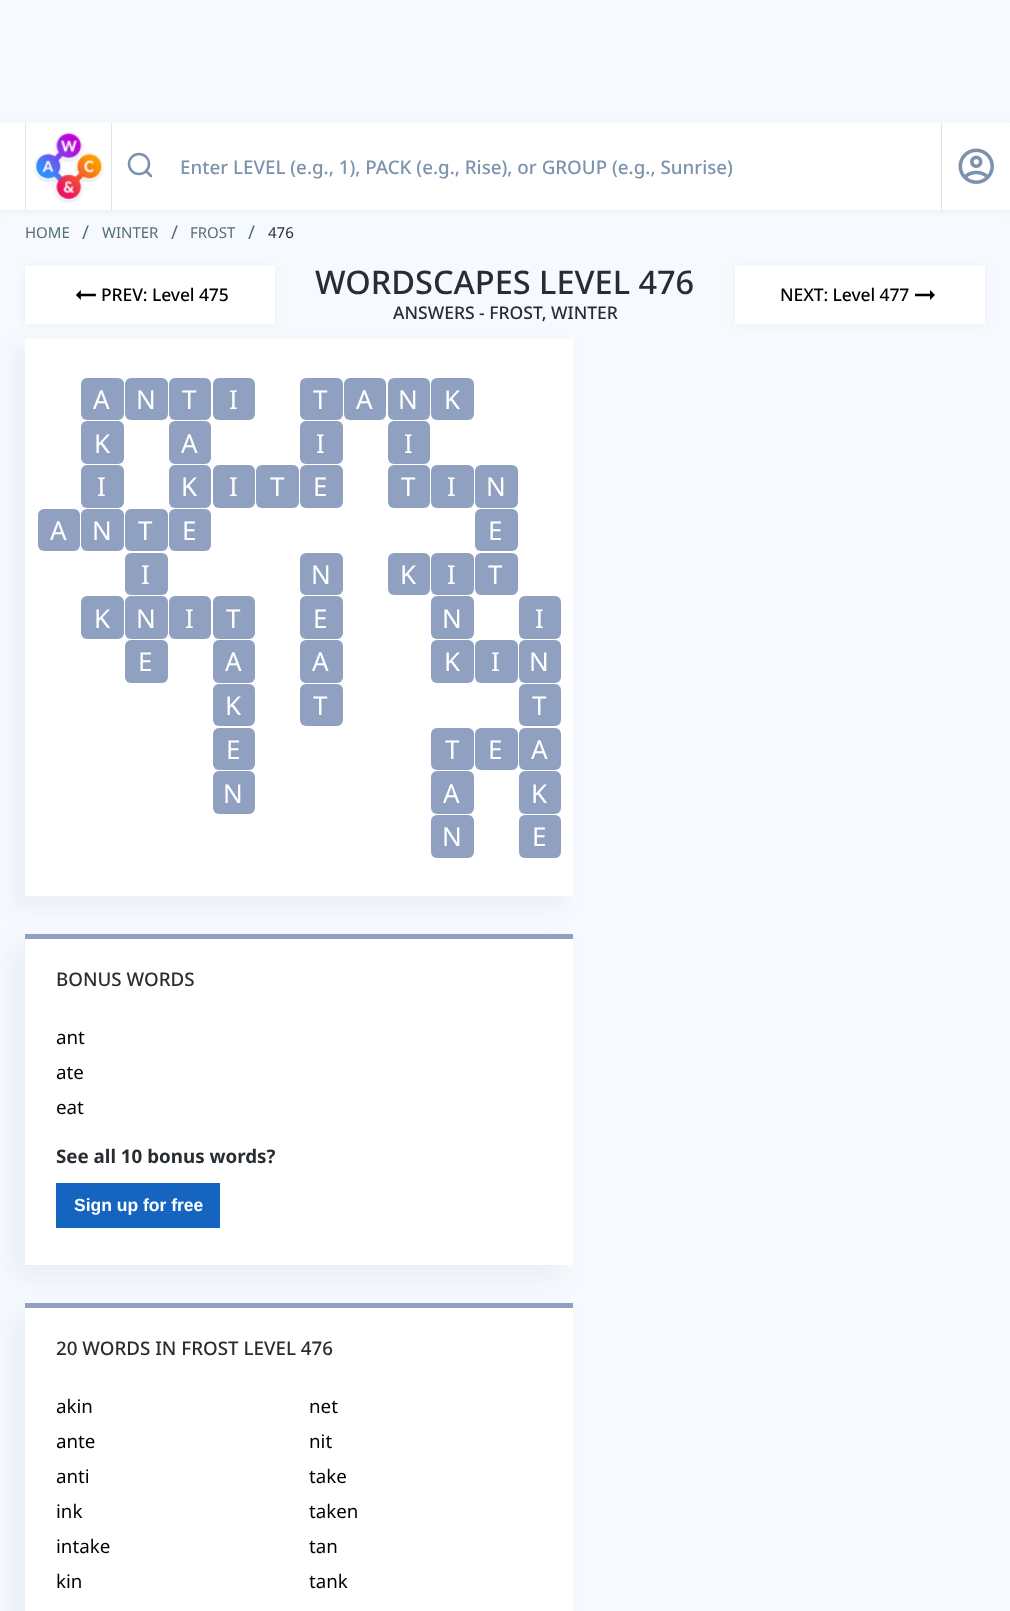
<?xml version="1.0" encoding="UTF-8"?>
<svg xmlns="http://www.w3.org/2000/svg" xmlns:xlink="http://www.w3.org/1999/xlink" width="1010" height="1611">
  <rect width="100%" height="100%" fill="#f6f9fd" />
  <rect y="124" width="1010" height="87" fill="#7c93ad" fill-opacity="0.1" filter="blur(3px)" />
  <rect x="1" y="122" width="1008" height="1" fill="#f6f9fd" />
  <rect y="123" width="1010" height="87" fill="#ffffff" />
  <rect x="111" y="123" width="1" height="87" fill="#dee5e9" />
  <rect x="25" y="123" width="1" height="87" fill="#dee5e9" />
  <image x="33" y="132" width="71" height="71" xlink:href="image1.png" />
  <circle cx="139" cy="164" r="10" fill="none" stroke="#7c93ad" stroke-width="2.5" />
  <path d="M 151 176 l -5 -5" fill="none" stroke="#7c93ad" stroke-width="2.5" stroke-linecap="round" stroke-linejoin="round" />
  <rect x="941" y="123" width="1" height="87" fill="#dee5e9" />
  <image x="958" y="148" width="36" height="36" xlink:href="image2.png" />
  <rect x="25" y="268" width="250" height="57" fill="#7c93ad" fill-opacity="0.1" filter="blur(4px)" />
  <rect x="25" y="266" width="250" height="58" fill="#ffffff" />
  <image x="76" y="290" width="20" height="10" xlink:href="image3.png" />
  <rect x="735" y="268" width="250" height="57" fill="#7c93ad" fill-opacity="0.1" filter="blur(4px)" />
  <rect x="735" y="266" width="250" height="58" fill="#ffffff" />
  <image x="915" y="290" width="20" height="10" xlink:href="image4.png" />
  <rect x="15" y="349" width="548" height="557" fill="#7c93ad" fill-opacity="0.1" filter="blur(10px)" />
  <rect x="25" y="339" width="548" height="557" fill="#ffffff" />
  <rect x="81" y="378" width="43" height="42" rx="6" fill="#90a0c1" />
  <rect x="125" y="378" width="43" height="42" rx="6" fill="#90a0c1" />
  <rect x="169" y="378" width="42" height="42" rx="6" fill="#90a0c1" />
  <rect x="213" y="378" width="42" height="42" rx="6" fill="#90a0c1" />
  <rect x="300" y="378" width="43" height="42" rx="6" fill="#90a0c1" />
  <rect x="344" y="378" width="42" height="42" rx="6" fill="#90a0c1" />
  <rect x="388" y="378" width="42" height="42" rx="6" fill="#90a0c1" />
  <rect x="431" y="378" width="43" height="42" rx="6" fill="#90a0c1" />
  <rect x="81" y="421" width="43" height="43" rx="6" fill="#90a0c1" />
  <rect x="169" y="421" width="42" height="43" rx="6" fill="#90a0c1" />
  <rect x="300" y="421" width="43" height="43" rx="6" fill="#90a0c1" />
  <rect x="388" y="421" width="42" height="43" rx="6" fill="#90a0c1" />
  <rect x="81" y="465" width="43" height="43" rx="6" fill="#90a0c1" />
  <rect x="169" y="465" width="42" height="43" rx="6" fill="#90a0c1" />
  <rect x="213" y="465" width="42" height="43" rx="6" fill="#90a0c1" />
  <rect x="256" y="465" width="43" height="43" rx="6" fill="#90a0c1" />
  <rect x="300" y="465" width="43" height="43" rx="6" fill="#90a0c1" />
  <rect x="388" y="465" width="42" height="43" rx="6" fill="#90a0c1" />
  <rect x="431" y="465" width="43" height="43" rx="6" fill="#90a0c1" />
  <rect x="475" y="465" width="43" height="43" rx="6" fill="#90a0c1" />
  <rect x="38" y="509" width="42" height="42" rx="6" fill="#90a0c1" />
  <rect x="81" y="509" width="43" height="42" rx="6" fill="#90a0c1" />
  <rect x="125" y="509" width="43" height="42" rx="6" fill="#90a0c1" />
  <rect x="169" y="509" width="42" height="42" rx="6" fill="#90a0c1" />
  <rect x="475" y="509" width="43" height="42" rx="6" fill="#90a0c1" />
  <rect x="125" y="553" width="43" height="42" rx="6" fill="#90a0c1" />
  <rect x="300" y="553" width="43" height="42" rx="6" fill="#90a0c1" />
  <rect x="388" y="553" width="42" height="42" rx="6" fill="#90a0c1" />
  <rect x="431" y="553" width="43" height="42" rx="6" fill="#90a0c1" />
  <rect x="475" y="553" width="43" height="42" rx="6" fill="#90a0c1" />
  <rect x="81" y="596" width="43" height="43" rx="6" fill="#90a0c1" />
  <rect x="125" y="596" width="43" height="43" rx="6" fill="#90a0c1" />
  <rect x="169" y="596" width="42" height="43" rx="6" fill="#90a0c1" />
  <rect x="213" y="596" width="42" height="43" rx="6" fill="#90a0c1" />
  <rect x="300" y="596" width="43" height="43" rx="6" fill="#90a0c1" />
  <rect x="431" y="596" width="43" height="43" rx="6" fill="#90a0c1" />
  <rect x="519" y="596" width="42" height="43" rx="6" fill="#90a0c1" />
  <rect x="125" y="640" width="43" height="43" rx="6" fill="#90a0c1" />
  <rect x="213" y="640" width="42" height="43" rx="6" fill="#90a0c1" />
  <rect x="300" y="640" width="43" height="43" rx="6" fill="#90a0c1" />
  <rect x="431" y="640" width="43" height="43" rx="6" fill="#90a0c1" />
  <rect x="475" y="640" width="43" height="43" rx="6" fill="#90a0c1" />
  <rect x="519" y="640" width="42" height="43" rx="6" fill="#90a0c1" />
  <rect x="213" y="684" width="42" height="42" rx="6" fill="#90a0c1" />
  <rect x="300" y="684" width="43" height="42" rx="6" fill="#90a0c1" />
  <rect x="519" y="684" width="42" height="42" rx="6" fill="#90a0c1" />
  <rect x="213" y="728" width="42" height="42" rx="6" fill="#90a0c1" />
  <rect x="431" y="728" width="43" height="42" rx="6" fill="#90a0c1" />
  <rect x="475" y="728" width="43" height="42" rx="6" fill="#90a0c1" />
  <rect x="519" y="728" width="42" height="42" rx="6" fill="#90a0c1" />
  <rect x="213" y="771" width="42" height="43" rx="6" fill="#90a0c1" />
  <rect x="431" y="771" width="43" height="43" rx="6" fill="#90a0c1" />
  <rect x="519" y="771" width="42" height="43" rx="6" fill="#90a0c1" />
  <rect x="431" y="815" width="43" height="43" rx="6" fill="#90a0c1" />
  <rect x="519" y="815" width="42" height="43" rx="6" fill="#90a0c1" />
  <rect x="13" y="946" width="547" height="332" fill="#7c93ad" fill-opacity="0.1" filter="blur(12.5px)" />
  <rect x="25" y="939" width="548" height="326" fill="#ffffff" />
  <rect x="25" y="934" width="548" height="5" fill="#90a0c1" />
  <rect x="56" y="1183" width="164" height="45" fill="#1565c0" />
  <rect x="13" y="1315" width="547" height="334" fill="#7c93ad" fill-opacity="0.1" filter="blur(12.5px)" />
  <rect x="25" y="1308" width="548" height="303" fill="#ffffff" />
  <rect x="25" y="1303" width="548" height="5" fill="#90a0c1" />
  <text x="180" y="174" style="font-family: Noto Sans; font-size: 18.75px; font-weight: 500; fill: #7c93ad">Enter LEVEL (e.g., 1), PACK (e.g., Rise), or GROUP (e.g., Sunrise)</text>
  <text x="25" y="238" style="font-family: Noto Sans; font-size: 15px; fill: #546e7a">HOME</text>
  <text x="82" y="239" style="font-family: Noto Sans; font-size: 18.75px; fill: #546e7a">/</text>
  <text x="102" y="238" style="font-family: Noto Sans; font-size: 15px; fill: #546e7a">WINTER</text>
  <text x="171" y="239" style="font-family: Noto Sans; font-size: 18.75px; fill: #546e7a">/</text>
  <text x="190" y="238" style="font-family: Noto Sans; font-size: 15px; fill: #546e7a">FROST</text>
  <text x="248" y="239" style="font-family: Noto Sans; font-size: 18.75px; fill: #546e7a">/</text>
  <text x="268" y="238" style="font-family: Noto Sans; font-size: 15px; fill: #282d32">476</text>
  <text x="101" y="301" style="font-family: Noto Sans; font-size: 17.5px; font-weight: 500; letter-spacing: -0.1px; fill: #000000">PREV: Level 475</text>
  <text x="315" y="294" style="font-family: Noto Sans; font-size: 32.5px; font-weight: 500; fill: #282d32">WORDSCAPES LEVEL 476</text>
  <text x="393" y="319" style="font-family: Noto Sans; font-size: 17.5px; font-weight: 500; fill: #282d32">ANSWERS - FROST, WINTER</text>
  <text x="780" y="301" style="font-family: Noto Sans; font-size: 17.5px; font-weight: 500; letter-spacing: -0.1px; fill: #000000">NEXT: Level 477</text>
  <text x="93" y="409" style="font-family: Noto Sans; font-size: 26px; fill: #ffffff">A</text>
  <text x="136" y="409" style="font-family: Noto Sans; font-size: 26px; fill: #ffffff">N</text>
  <text x="182" y="409" style="font-family: Noto Sans; font-size: 26px; fill: #ffffff">T</text>
  <text x="229" y="409" style="font-family: Noto Sans; font-size: 26px; fill: #ffffff">I</text>
  <text x="313" y="409" style="font-family: Noto Sans; font-size: 26px; fill: #ffffff">T</text>
  <text x="356" y="409" style="font-family: Noto Sans; font-size: 26px; fill: #ffffff">A</text>
  <text x="398" y="409" style="font-family: Noto Sans; font-size: 26px; fill: #ffffff">N</text>
  <text x="444" y="409" style="font-family: Noto Sans; font-size: 26px; fill: #ffffff">K</text>
  <text x="94" y="453" style="font-family: Noto Sans; font-size: 26px; fill: #ffffff">K</text>
  <text x="181" y="453" style="font-family: Noto Sans; font-size: 26px; fill: #ffffff">A</text>
  <text x="316" y="453" style="font-family: Noto Sans; font-size: 26px; fill: #ffffff">I</text>
  <text x="404" y="453" style="font-family: Noto Sans; font-size: 26px; fill: #ffffff">I</text>
  <text x="97" y="496" style="font-family: Noto Sans; font-size: 26px; fill: #ffffff">I</text>
  <text x="181" y="496" style="font-family: Noto Sans; font-size: 26px; fill: #ffffff">K</text>
  <text x="229" y="496" style="font-family: Noto Sans; font-size: 26px; fill: #ffffff">I</text>
  <text x="270" y="496" style="font-family: Noto Sans; font-size: 26px; fill: #ffffff">T</text>
  <text x="313" y="496" style="font-family: Noto Sans; font-size: 26px; fill: #ffffff">E</text>
  <text x="401" y="496" style="font-family: Noto Sans; font-size: 26px; fill: #ffffff">T</text>
  <text x="447" y="496" style="font-family: Noto Sans; font-size: 26px; fill: #ffffff">I</text>
  <text x="486" y="496" style="font-family: Noto Sans; font-size: 26px; fill: #ffffff">N</text>
  <text x="50" y="540" style="font-family: Noto Sans; font-size: 26px; fill: #ffffff">A</text>
  <text x="92" y="540" style="font-family: Noto Sans; font-size: 26px; fill: #ffffff">N</text>
  <text x="138" y="540" style="font-family: Noto Sans; font-size: 26px; fill: #ffffff">T</text>
  <text x="182" y="540" style="font-family: Noto Sans; font-size: 26px; fill: #ffffff">E</text>
  <text x="488" y="540" style="font-family: Noto Sans; font-size: 26px; fill: #ffffff">E</text>
  <text x="141" y="584" style="font-family: Noto Sans; font-size: 26px; fill: #ffffff">I</text>
  <text x="311" y="584" style="font-family: Noto Sans; font-size: 26px; fill: #ffffff">N</text>
  <text x="400" y="584" style="font-family: Noto Sans; font-size: 26px; fill: #ffffff">K</text>
  <text x="447" y="584" style="font-family: Noto Sans; font-size: 26px; fill: #ffffff">I</text>
  <text x="488" y="584" style="font-family: Noto Sans; font-size: 26px; fill: #ffffff">T</text>
  <text x="94" y="628" style="font-family: Noto Sans; font-size: 26px; fill: #ffffff">K</text>
  <text x="136" y="628" style="font-family: Noto Sans; font-size: 26px; fill: #ffffff">N</text>
  <text x="185" y="628" style="font-family: Noto Sans; font-size: 26px; fill: #ffffff">I</text>
  <text x="226" y="628" style="font-family: Noto Sans; font-size: 26px; fill: #ffffff">T</text>
  <text x="313" y="628" style="font-family: Noto Sans; font-size: 26px; fill: #ffffff">E</text>
  <text x="442" y="628" style="font-family: Noto Sans; font-size: 26px; fill: #ffffff">N</text>
  <text x="535" y="628" style="font-family: Noto Sans; font-size: 26px; fill: #ffffff">I</text>
  <text x="138" y="671" style="font-family: Noto Sans; font-size: 26px; fill: #ffffff">E</text>
  <text x="225" y="671" style="font-family: Noto Sans; font-size: 26px; fill: #ffffff">A</text>
  <text x="312" y="671" style="font-family: Noto Sans; font-size: 26px; fill: #ffffff">A</text>
  <text x="444" y="671" style="font-family: Noto Sans; font-size: 26px; fill: #ffffff">K</text>
  <text x="491" y="671" style="font-family: Noto Sans; font-size: 26px; fill: #ffffff">I</text>
  <text x="529" y="671" style="font-family: Noto Sans; font-size: 26px; fill: #ffffff">N</text>
  <text x="225" y="715" style="font-family: Noto Sans; font-size: 26px; fill: #ffffff">K</text>
  <text x="313" y="715" style="font-family: Noto Sans; font-size: 26px; fill: #ffffff">T</text>
  <text x="532" y="715" style="font-family: Noto Sans; font-size: 26px; fill: #ffffff">T</text>
  <text x="226" y="759" style="font-family: Noto Sans; font-size: 26px; fill: #ffffff">E</text>
  <text x="445" y="759" style="font-family: Noto Sans; font-size: 26px; fill: #ffffff">T</text>
  <text x="488" y="759" style="font-family: Noto Sans; font-size: 26px; fill: #ffffff">E</text>
  <text x="531" y="759" style="font-family: Noto Sans; font-size: 26px; fill: #ffffff">A</text>
  <text x="223" y="803" style="font-family: Noto Sans; font-size: 26px; fill: #ffffff">N</text>
  <text x="443" y="803" style="font-family: Noto Sans; font-size: 26px; fill: #ffffff">A</text>
  <text x="531" y="803" style="font-family: Noto Sans; font-size: 26px; fill: #ffffff">K</text>
  <text x="442" y="846" style="font-family: Noto Sans; font-size: 26px; fill: #ffffff">N</text>
  <text x="532" y="846" style="font-family: Noto Sans; font-size: 26px; fill: #ffffff">E</text>
  <text x="56" y="986" style="font-family: Noto Sans; font-size: 18.75px; font-weight: 500; fill: #282d32">BONUS WORDS</text>
  <text x="56" y="1044" style="font-family: Noto Sans; font-size: 18.75px; fill: #000000">ant</text>
  <text x="56" y="1079" style="font-family: Noto Sans; font-size: 18.75px; fill: #000000">ate</text>
  <text x="56" y="1114" style="font-family: Noto Sans; font-size: 18.75px; fill: #000000">eat</text>
  <text x="56" y="1163" style="font-family: Noto Sans; font-size: 18.75px; font-weight: bold; fill: #282d32">See all 10 bonus words?</text>
  <text x="74" y="1211" style="font-family: Liberation Sans; font-size: 17.5px; font-weight: bold; fill: #ffffff">Sign up for free</text>
  <text x="56" y="1355" style="font-family: Noto Sans; font-size: 18.75px; font-weight: 500; fill: #282d32">20 WORDS IN FROST LEVEL 476</text>
  <text x="56" y="1413" style="font-family: Noto Sans; font-size: 18.75px; fill: #000000">akin</text>
  <text x="309" y="1413" style="font-family: Noto Sans; font-size: 18.75px; fill: #000000">net</text>
  <text x="56" y="1448" style="font-family: Noto Sans; font-size: 18.75px; fill: #000000">ante</text>
  <text x="309" y="1448" style="font-family: Noto Sans; font-size: 18.75px; fill: #000000">nit</text>
  <text x="56" y="1483" style="font-family: Noto Sans; font-size: 18.75px; fill: #000000">anti</text>
  <text x="309" y="1483" style="font-family: Noto Sans; font-size: 18.75px; fill: #000000">take</text>
  <text x="56" y="1518" style="font-family: Noto Sans; font-size: 18.75px; fill: #000000">ink</text>
  <text x="309" y="1518" style="font-family: Noto Sans; font-size: 18.75px; fill: #000000">taken</text>
  <text x="56" y="1553" style="font-family: Noto Sans; font-size: 18.75px; fill: #000000">intake</text>
  <text x="309" y="1553" style="font-family: Noto Sans; font-size: 18.75px; fill: #000000">tan</text>
  <text x="56" y="1588" style="font-family: Noto Sans; font-size: 18.75px; fill: #000000">kin</text>
  <text x="309" y="1588" style="font-family: Noto Sans; font-size: 18.75px; fill: #000000">tank</text>
</svg>
